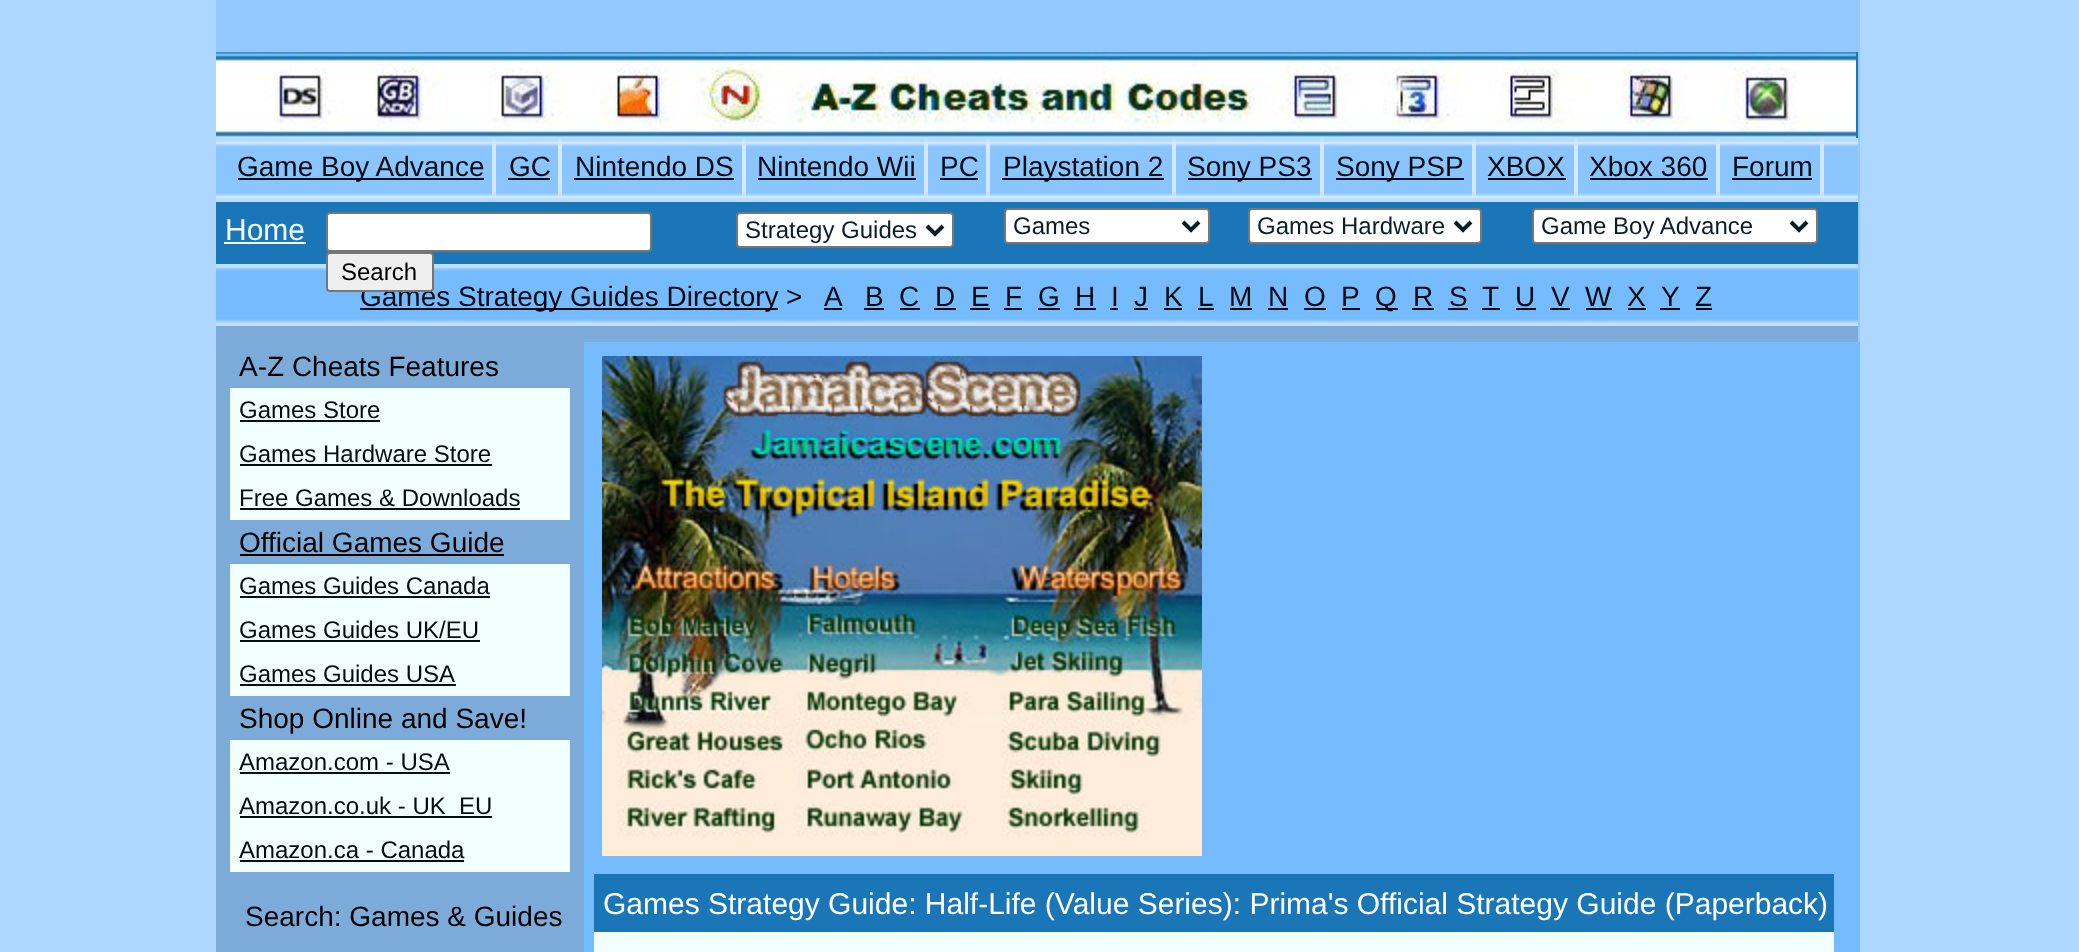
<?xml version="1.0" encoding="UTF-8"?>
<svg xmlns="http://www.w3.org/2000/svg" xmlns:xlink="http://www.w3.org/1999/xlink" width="2079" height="952">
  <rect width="100%" height="100%" fill="#aed7ff" />
  <rect x="584" y="342" width="1276" height="610" fill="#77bbff" />
  <rect x="216" width="1644" height="342" fill="#93c9ff" />
  <rect x="1856" y="52" width="2" height="86" fill="#1a76b7" />
  <image x="216" y="52" width="1640" height="86" xlink:href="image1.png" />
  <image x="216" y="138" width="1642" height="64" xlink:href="image2.png" />
  <image x="492" y="138" width="4" height="58" xlink:href="image3.png" />
  <rect x="238" y="178" width="246" height="2" fill="#030c12" />
  <image x="558" y="138" width="4" height="58" xlink:href="image3.png" />
  <rect x="508" y="178" width="42" height="2" fill="#030c12" />
  <image x="742" y="138" width="4" height="58" xlink:href="image3.png" />
  <rect x="574" y="178" width="160" height="2" fill="#030c12" />
  <image x="924" y="138" width="4" height="58" xlink:href="image3.png" />
  <rect x="758" y="178" width="158" height="2" fill="#030c12" />
  <image x="986" y="138" width="4" height="58" xlink:href="image3.png" />
  <rect x="940" y="178" width="38" height="2" fill="#030c12" />
  <image x="1172" y="138" width="4" height="58" xlink:href="image3.png" />
  <rect x="1002" y="178" width="162" height="2" fill="#030c12" />
  <image x="1320" y="138" width="4" height="58" xlink:href="image3.png" />
  <rect x="1188" y="178" width="124" height="2" fill="#030c12" />
  <image x="1472" y="138" width="4" height="58" xlink:href="image3.png" />
  <rect x="1336" y="178" width="128" height="2" fill="#030c12" />
  <image x="1574" y="138" width="4" height="58" xlink:href="image3.png" />
  <rect x="1488" y="178" width="78" height="2" fill="#030c12" />
  <image x="1716" y="138" width="4" height="58" xlink:href="image3.png" />
  <rect x="1590" y="178" width="118" height="2" fill="#030c12" />
  <image x="1820" y="138" width="4" height="58" xlink:href="image3.png" />
  <rect x="1732" y="178" width="80" height="2" fill="#030c12" />
  <rect x="216" y="202" width="1642" height="62" fill="#1a76b7" />
  <rect x="224" y="242" width="82" height="2" fill="#f2ffff" />
  <rect x="737" y="213" width="216" height="34" rx="3" fill="#ffffff" stroke="#767676" stroke-width="2" />
  <path d="M 927 226 l 8 8 l 8 -8" fill="none" stroke="#071e2e" stroke-width="4" />
  <rect x="1005" y="209" width="204" height="34" rx="3" fill="#ffffff" stroke="#767676" stroke-width="2" />
  <path d="M 1183 222 l 8 8 l 8 -8" fill="none" stroke="#071e2e" stroke-width="4" />
  <rect x="1249" y="209" width="232" height="34" rx="3" fill="#ffffff" stroke="#767676" stroke-width="2" />
  <path d="M 1455 222 l 8 8 l 8 -8" fill="none" stroke="#071e2e" stroke-width="4" />
  <rect x="1533" y="209" width="284" height="34" rx="3" fill="#ffffff" stroke="#767676" stroke-width="2" />
  <path d="M 1791 222 l 8 8 l 8 -8" fill="none" stroke="#071e2e" stroke-width="4" />
  <rect x="327" y="213" width="324" height="38" rx="3" fill="#ffffff" stroke="#767676" stroke-width="2" />
  <image x="216" y="264" width="1642" height="62" xlink:href="image4.png" />
  <rect x="360" y="308" width="418" height="2" fill="#030c12" />
  <rect x="824" y="308" width="18" height="2" fill="#030c12" />
  <rect x="864" y="308" width="20" height="2" fill="#030c12" />
  <rect x="900" y="308" width="20" height="2" fill="#030c12" />
  <rect x="934" y="308" width="22" height="2" fill="#030c12" />
  <rect x="970" y="308" width="20" height="2" fill="#030c12" />
  <rect x="1004" y="308" width="18" height="2" fill="#030c12" />
  <rect x="1038" y="308" width="22" height="2" fill="#030c12" />
  <rect x="1074" y="308" width="22" height="2" fill="#030c12" />
  <rect x="1110" y="308" width="8" height="2" fill="#030c12" />
  <rect x="1134" y="308" width="14" height="2" fill="#030c12" />
  <rect x="1164" y="308" width="18" height="2" fill="#030c12" />
  <rect x="1198" y="308" width="16" height="2" fill="#030c12" />
  <rect x="1230" y="308" width="22" height="2" fill="#030c12" />
  <rect x="1268" y="308" width="20" height="2" fill="#030c12" />
  <rect x="1304" y="308" width="22" height="2" fill="#030c12" />
  <rect x="1342" y="308" width="18" height="2" fill="#030c12" />
  <rect x="1376" y="308" width="22" height="2" fill="#030c12" />
  <rect x="1412" y="308" width="22" height="2" fill="#030c12" />
  <rect x="1448" y="308" width="20" height="2" fill="#030c12" />
  <rect x="1482" y="308" width="18" height="2" fill="#030c12" />
  <rect x="1516" y="308" width="20" height="2" fill="#030c12" />
  <rect x="1550" y="308" width="20" height="2" fill="#030c12" />
  <rect x="1586" y="308" width="26" height="2" fill="#030c12" />
  <rect x="1628" y="308" width="18" height="2" fill="#030c12" />
  <rect x="1660" y="308" width="20" height="2" fill="#030c12" />
  <rect x="1696" y="308" width="16" height="2" fill="#030c12" />
  <rect x="216" y="326" width="1642" height="16" fill="#7dabd9" />
  <rect x="216" y="342" width="368" height="610" fill="#7dabd9" />
  <rect x="230" y="388" width="340" height="484" fill="#f2ffff" />
  <rect x="240" y="420" width="140" height="2" fill="#030c12" />
  <rect x="240" y="464" width="252" height="2" fill="#030c12" />
  <rect x="240" y="508" width="280" height="2" fill="#030c12" />
  <rect x="230" y="520" width="340" height="44" fill="#7dabd9" />
  <rect x="240" y="554" width="264" height="2" fill="#000000" />
  <rect x="240" y="596" width="250" height="2" fill="#030c12" />
  <rect x="240" y="640" width="240" height="2" fill="#030c12" />
  <rect x="240" y="684" width="216" height="2" fill="#030c12" />
  <rect x="230" y="696" width="340" height="44" fill="#7dabd9" />
  <rect x="240" y="772" width="210" height="2" fill="#030c12" />
  <rect x="240" y="816" width="252" height="2" fill="#030c12" />
  <rect x="240" y="860" width="224" height="2" fill="#030c12" />
  <image x="602" y="356" width="600" height="500" xlink:href="image5.png" />
  <rect x="594" y="932" width="1240" height="20" fill="#f2ffff" />
  <rect x="594" y="874" width="1240" height="58" fill="#1a76b7" />
  <text x="237" y="176" style="font-family: Liberation Sans; font-size: 28px; fill: #030c12">Game Boy Advance</text>
  <text x="509" y="176" style="font-family: Liberation Sans; font-size: 28px; fill: #030c12">GC</text>
  <text x="575" y="176" style="font-family: Liberation Sans; font-size: 28px; fill: #030c12">Nintendo DS</text>
  <text x="757" y="176" style="font-family: Liberation Sans; font-size: 28px; fill: #030c12">Nintendo Wii</text>
  <text x="940" y="176" style="font-family: Liberation Sans; font-size: 28px; fill: #030c12">PC</text>
  <text x="1003" y="176" style="font-family: Liberation Sans; font-size: 28px; fill: #030c12">Playstation 2</text>
  <text x="1187" y="176" style="font-family: Liberation Sans; font-size: 28px; fill: #030c12">Sony PS3</text>
  <text x="1336" y="176" style="font-family: Liberation Sans; font-size: 28px; fill: #030c12">Sony PSP</text>
  <text x="1487" y="176" style="font-family: Liberation Sans; font-size: 28px; fill: #030c12">XBOX</text>
  <text x="1589" y="176" style="font-family: Liberation Sans; font-size: 28px; fill: #030c12">Xbox 360</text>
  <text x="1732" y="176" style="font-family: Liberation Sans; font-size: 28px; fill: #030c12">Forum</text>
  <text x="225" y="240" style="font-family: Liberation Sans; font-size: 30px; fill: #f2ffff">Home</text>
  <text x="745" y="238" style="font-family: Liberation Sans; font-size: 24px; fill: #071e2e">Strategy Guides</text>
  <text x="1013" y="234" style="font-family: Liberation Sans; font-size: 24px; fill: #071e2e">Games</text>
  <text x="1257" y="234" style="font-family: Liberation Sans; font-size: 24px; fill: #071e2e">Games Hardware</text>
  <text x="1541" y="234" style="font-family: Liberation Sans; font-size: 24px; fill: #071e2e">Game Boy Advance</text>
  <text x="360" y="306" style="font-family: Liberation Sans; font-size: 28px; fill: #030c12">Games Strategy Guides Directory</text>
  <rect x="327" y="253" width="106" height="38" rx="3" fill="#efefef" stroke="#767676" stroke-width="2" />
  <text x="341" y="280" style="font-family: Liberation Sans; font-size: 24px; fill: #000000">Search</text>
  <text x="786" y="306" style="font-family: Liberation Sans; font-size: 28px; fill: #030c12">&gt;</text>
  <text x="824" y="306" style="font-family: Liberation Sans; font-size: 28px; fill: #030c12">A</text>
  <text x="865" y="306" style="font-family: Liberation Sans; font-size: 28px; fill: #030c12">B</text>
  <text x="899" y="306" style="font-family: Liberation Sans; font-size: 28px; fill: #030c12">C</text>
  <text x="935" y="306" style="font-family: Liberation Sans; font-size: 28px; fill: #030c12">D</text>
  <text x="971" y="306" style="font-family: Liberation Sans; font-size: 28px; fill: #030c12">E</text>
  <text x="1005" y="306" style="font-family: Liberation Sans; font-size: 28px; fill: #030c12">F</text>
  <text x="1038" y="306" style="font-family: Liberation Sans; font-size: 28px; fill: #030c12">G</text>
  <text x="1075" y="306" style="font-family: Liberation Sans; font-size: 28px; fill: #030c12">H</text>
  <text x="1111" y="306" style="font-family: Liberation Sans; font-size: 28px; fill: #030c12">I</text>
  <text x="1134" y="306" style="font-family: Liberation Sans; font-size: 28px; fill: #030c12">J</text>
  <text x="1164" y="306" style="font-family: Liberation Sans; font-size: 28px; fill: #030c12">K</text>
  <text x="1198" y="306" style="font-family: Liberation Sans; font-size: 28px; fill: #030c12">L</text>
  <text x="1229" y="306" style="font-family: Liberation Sans; font-size: 28px; fill: #030c12">M</text>
  <text x="1268" y="306" style="font-family: Liberation Sans; font-size: 28px; fill: #030c12">N</text>
  <text x="1304" y="306" style="font-family: Liberation Sans; font-size: 28px; fill: #030c12">O</text>
  <text x="1341" y="306" style="font-family: Liberation Sans; font-size: 28px; fill: #030c12">P</text>
  <text x="1375" y="306" style="font-family: Liberation Sans; font-size: 28px; fill: #030c12">Q</text>
  <text x="1413" y="306" style="font-family: Liberation Sans; font-size: 28px; fill: #030c12">R</text>
  <text x="1449" y="306" style="font-family: Liberation Sans; font-size: 28px; fill: #030c12">S</text>
  <text x="1482" y="306" style="font-family: Liberation Sans; font-size: 28px; fill: #030c12">T</text>
  <text x="1515" y="306" style="font-family: Liberation Sans; font-size: 28px; fill: #030c12">U</text>
  <text x="1551" y="306" style="font-family: Liberation Sans; font-size: 28px; fill: #030c12">V</text>
  <text x="1585" y="306" style="font-family: Liberation Sans; font-size: 28px; fill: #030c12">W</text>
  <text x="1627" y="306" style="font-family: Liberation Sans; font-size: 28px; fill: #030c12">X</text>
  <text x="1661" y="306" style="font-family: Liberation Sans; font-size: 28px; fill: #030c12">Y</text>
  <text x="1695" y="306" style="font-family: Liberation Sans; font-size: 28px; fill: #030c12">Z</text>
  <text x="239" y="376" style="font-family: Liberation Sans; font-size: 28px; fill: #000000">A-Z Cheats Features</text>
  <text x="239" y="418" style="font-family: Liberation Sans; font-size: 24px; fill: #030c12">Games Store</text>
  <text x="239" y="462" style="font-family: Liberation Sans; font-size: 24px; fill: #030c12">Games Hardware Store</text>
  <text x="239" y="506" style="font-family: Liberation Sans; font-size: 24px; fill: #030c12">Free Games &amp; Downloads</text>
  <text x="239" y="552" style="font-family: Liberation Sans; font-size: 28px; fill: #000000">Official Games Guide</text>
  <text x="239" y="594" style="font-family: Liberation Sans; font-size: 24px; fill: #030c12">Games Guides Canada</text>
  <text x="239" y="638" style="font-family: Liberation Sans; font-size: 24px; fill: #030c12">Games Guides UK/EU</text>
  <text x="239" y="682" style="font-family: Liberation Sans; font-size: 24px; fill: #030c12">Games Guides USA</text>
  <text x="239" y="728" style="font-family: Liberation Sans; font-size: 28px; fill: #000000">Shop Online and Save!</text>
  <text x="239" y="770" style="font-family: Liberation Sans; font-size: 24px; fill: #030c12">Amazon.com - USA</text>
  <text x="239" y="814" style="font-family: Liberation Sans; font-size: 24px; fill: #030c12" xml:space="preserve">Amazon.co.uk - UK  EU</text>
  <text x="239" y="858" style="font-family: Liberation Sans; font-size: 24px; fill: #030c12">Amazon.ca - Canada</text>
  <text x="245" y="926" style="font-family: Liberation Sans; font-size: 28px; fill: #000000">Search: Games &amp; Guides</text>
  <text x="603" y="914" style="font-family: Liberation Sans; font-size: 30px; fill: #ffffff">Games Strategy Guide: Half-Life (Value Series): Prima's Official Strategy Guide (Paperback)</text>
</svg>
